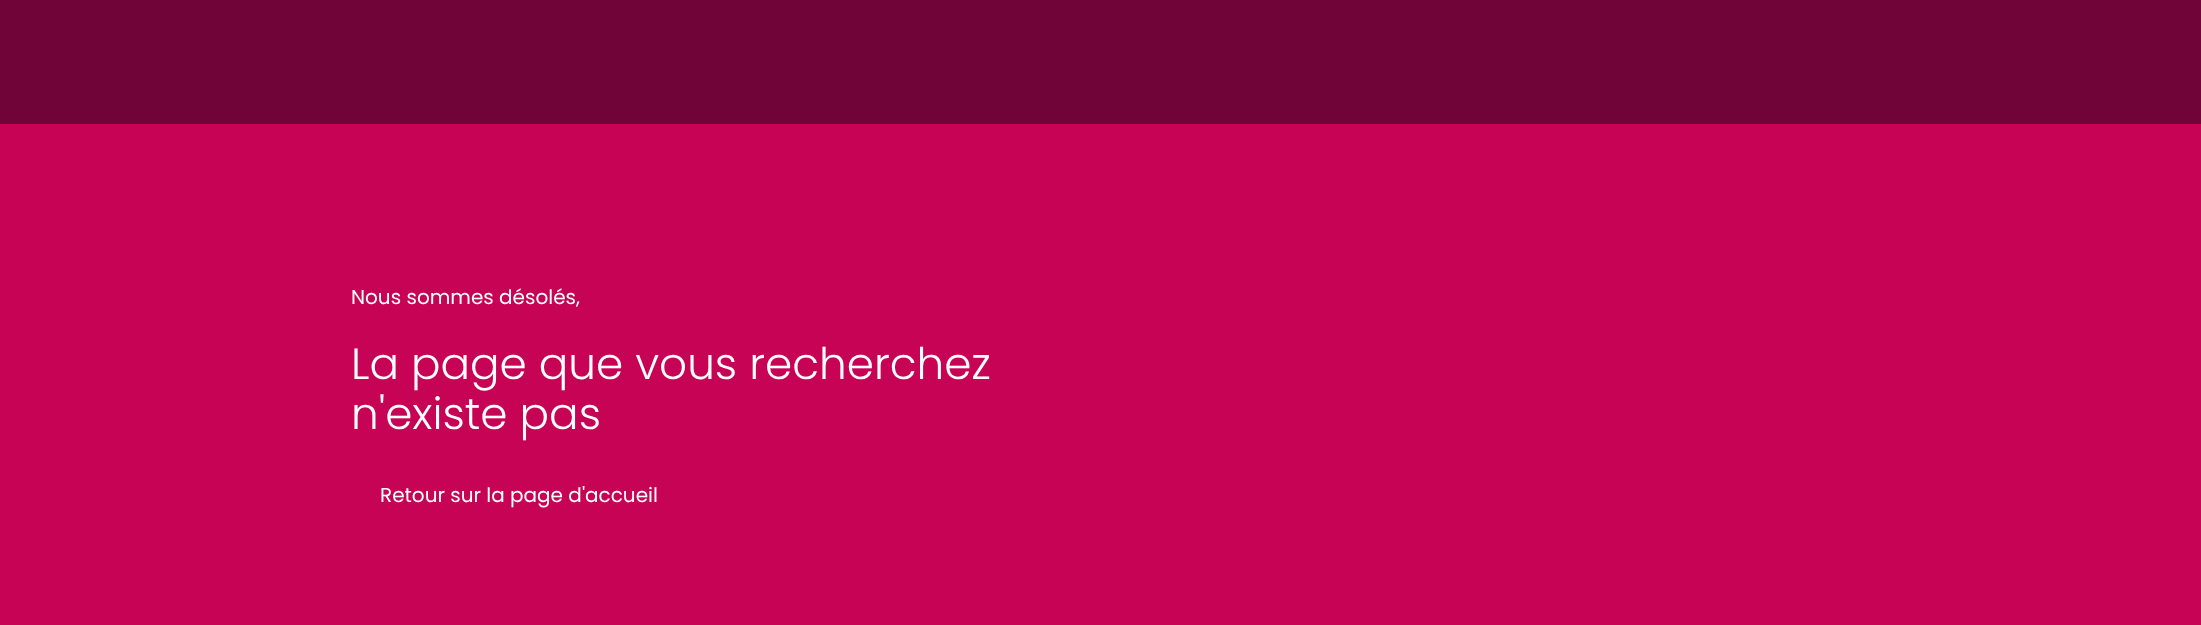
<?xml version="1.0" encoding="UTF-8"?>
<svg xmlns="http://www.w3.org/2000/svg" xmlns:xlink="http://www.w3.org/1999/xlink" width="2201" height="625">
  <rect width="100%" height="100%" fill="#700337" />
  <rect y="124" width="2201" height="501" fill="#c60354" />
  <text x="351" y="304" style="font-family: Poppins; font-size: 20px; fill: #ffffff">Nous sommes désolés,</text>
  <text x="351" y="379" style="font-family: Poppins; font-size: 43.75px; font-weight: 300; fill: #ffffff">La page que vous recherchez</text>
  <text x="351" y="429" style="font-family: Poppins; font-size: 43.75px; font-weight: 300; fill: #ffffff">n'existe pas</text>
  <text x="380" y="502" style="font-family: Poppins; font-size: 20px; fill: #ffffff">Retour sur la page d'accueil</text>
</svg>
